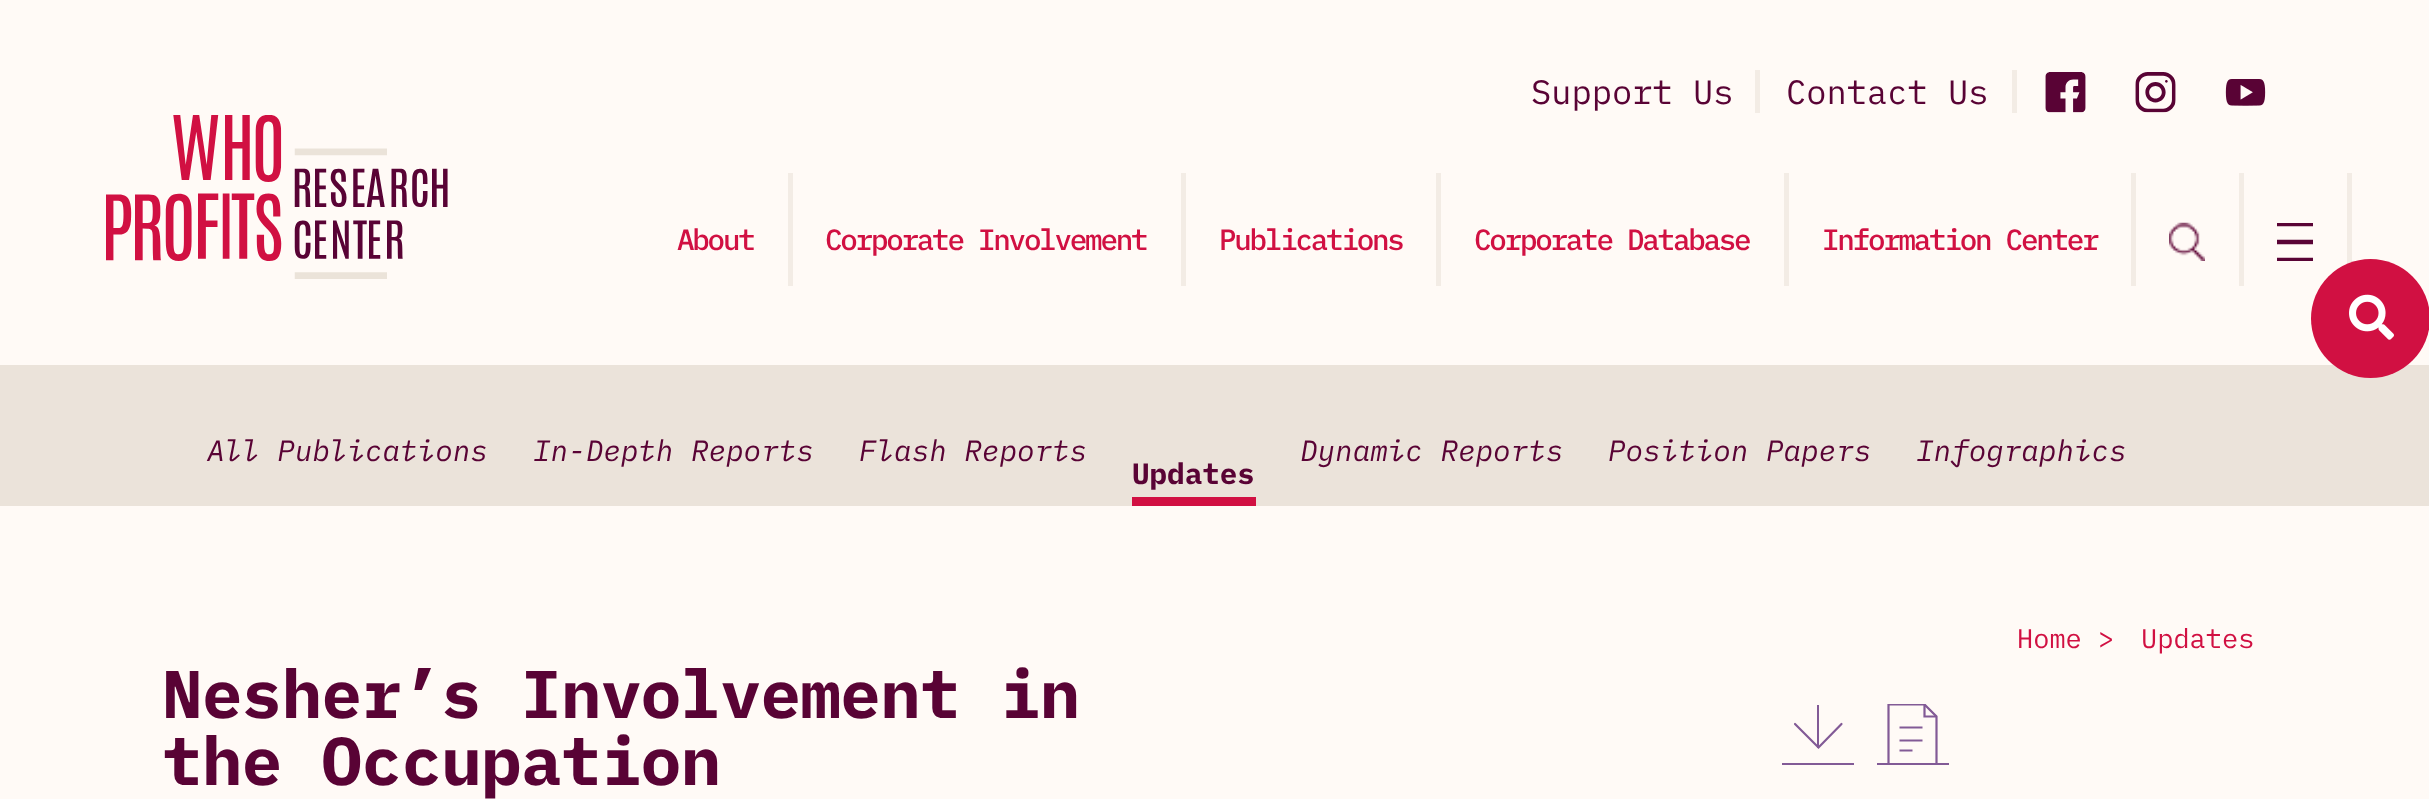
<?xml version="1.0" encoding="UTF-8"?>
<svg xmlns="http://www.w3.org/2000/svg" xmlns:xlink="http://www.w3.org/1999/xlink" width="2429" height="799">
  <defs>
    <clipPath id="clip1"><rect x="2277" y="223" width="36" height="38" /></clipPath>
    <clipPath id="clip2"><rect x="1877" y="704" width="72" height="63" /></clipPath>
  </defs>
  <rect width="100%" height="100%" fill="#fffaf6" />
  <rect x="1755" y="70" width="5" height="43" fill="#f3ece5" />
  <rect x="2012" y="70" width="5" height="43" fill="#f3ece5" />
  <image x="2045" y="72" width="41" height="41" xlink:href="image1.png" />
  <image x="2135" y="72" width="41" height="41" xlink:href="image2.png" />
  <image x="2225" y="79" width="41" height="27" xlink:href="image3.png" />
  <image x="106" y="115" width="342" height="164" xlink:href="image4.png" />
  <rect x="788" y="173" width="5" height="113" fill="#f3ece5" />
  <rect x="1181" y="173" width="5" height="113" fill="#f3ece5" />
  <rect x="1436" y="173" width="5" height="113" fill="#f3ece5" />
  <rect x="1784" y="173" width="5" height="113" fill="#f3ece5" />
  <rect x="2131" y="173" width="5" height="113" fill="#f3ece5" />
  <rect x="2239" y="173" width="5" height="113" fill="#f3ece5" />
  <image x="2169" y="222" width="36" height="39" xlink:href="image5.png" />
  <rect x="2347" y="173" width="5" height="91" fill="#f3ece5" />
  <g clip-path="url(#clip1)">
    <path d="M 2277 260 h 36 m -36 -18 h 36 m -36 -18 h 36" fill="none" stroke="#590335" stroke-width="4.5" stroke-linecap="round" />
  </g>
  <rect y="365" width="2429" height="141" fill="#ebe3da" />
  <circle cx="2370.5" cy="318.5" r="59.5" fill="#d11042" />
  <image x="2349" y="294" width="45" height="46" xlink:href="image6.png" />
  <rect x="1132" y="497" width="124" height="9" fill="#d11042" />
  <rect x="1877" y="763" width="72" height="2" fill="#825a96" />
  <g clip-path="url(#clip2)">
    <path d="M 1888.5 764 v -59.5 h 36 l 12 12 v 47.5" fill="none" stroke="#825a96" stroke-width="2.2" />
  </g>
  <rect x="1817" y="705" width="2" height="43" fill="#825a96" />
  <path d="M 1924.5 704.5 v 12 h 12 m -37 11 h 23 m -23 13 h 23 m -23 10 h 13" fill="none" stroke="#825a96" stroke-width="2.2" />
  <path d="M 1795 724 l 23.5 23.5 l 23 -23.5" fill="none" stroke="#825a96" stroke-width="2.2" stroke-linecap="round" />
  <rect x="1782" y="763" width="72" height="2" fill="#825a96" />
  <text x="1531" y="104" style="font-family: IBM Plex Mono; font-size: 33.75px; fill: #590335">Support Us</text>
  <text x="1786" y="104" style="font-family: IBM Plex Mono; font-size: 33.75px; fill: #590335">Contact Us</text>
  <text x="677" y="250" style="font-family: IBM Plex Mono; font-size: 29.25px; font-weight: 500; letter-spacing: -2.25px; fill: #d11042">About</text>
  <text x="825" y="250" style="font-family: IBM Plex Mono; font-size: 29.25px; font-weight: 500; letter-spacing: -2.25px; fill: #d11042">Corporate Involvement</text>
  <text x="1219" y="250" style="font-family: IBM Plex Mono; font-size: 29.25px; font-weight: 500; letter-spacing: -2.25px; fill: #d11042">Publications</text>
  <text x="1474" y="250" style="font-family: IBM Plex Mono; font-size: 29.25px; font-weight: 500; letter-spacing: -2.25px; fill: #d11042">Corporate Database</text>
  <text x="1822" y="250" style="font-family: IBM Plex Mono; font-size: 29.25px; font-weight: 500; letter-spacing: -2.25px; fill: #d11042">Information Center</text>
  <text x="207" y="461" style="font-family: IBM Plex Mono; font-size: 29.25px; font-style: italic; fill: #590335">All Publications</text>
  <text x="533" y="461" style="font-family: IBM Plex Mono; font-size: 29.25px; font-style: italic; fill: #590335">In-Depth Reports</text>
  <text x="859" y="461" style="font-family: IBM Plex Mono; font-size: 29.25px; font-style: italic; fill: #590335">Flash Reports</text>
  <text x="1300" y="461" style="font-family: IBM Plex Mono; font-size: 29.25px; font-style: italic; fill: #590335">Dynamic Reports</text>
  <text x="1608" y="461" style="font-family: IBM Plex Mono; font-size: 29.25px; font-style: italic; fill: #590335">Position Papers</text>
  <text x="1916" y="461" style="font-family: IBM Plex Mono; font-size: 29.25px; font-style: italic; fill: #590335">Infographics</text>
  <text x="1132" y="484" style="font-family: IBM Plex Mono; font-size: 29.25px; font-weight: bold; fill: #590335">Updates</text>
  <text x="2017" y="648" style="font-family: IBM Plex Mono; font-size: 27px; fill: #d11042">Home &gt;</text>
  <text x="2141" y="648" style="font-family: IBM Plex Mono; font-size: 27px; fill: #d11042">Updates</text>
  <text x="162" y="718" style="font-family: IBM Plex Mono; font-size: 67.5px; font-weight: bold; letter-spacing: -0.6px; fill: #590335">Nesher’s Involvement in</text>
  <text x="162" y="785" style="font-family: IBM Plex Mono; font-size: 67.5px; font-weight: bold; letter-spacing: -0.6px; fill: #590335">the Occupation</text>
</svg>
